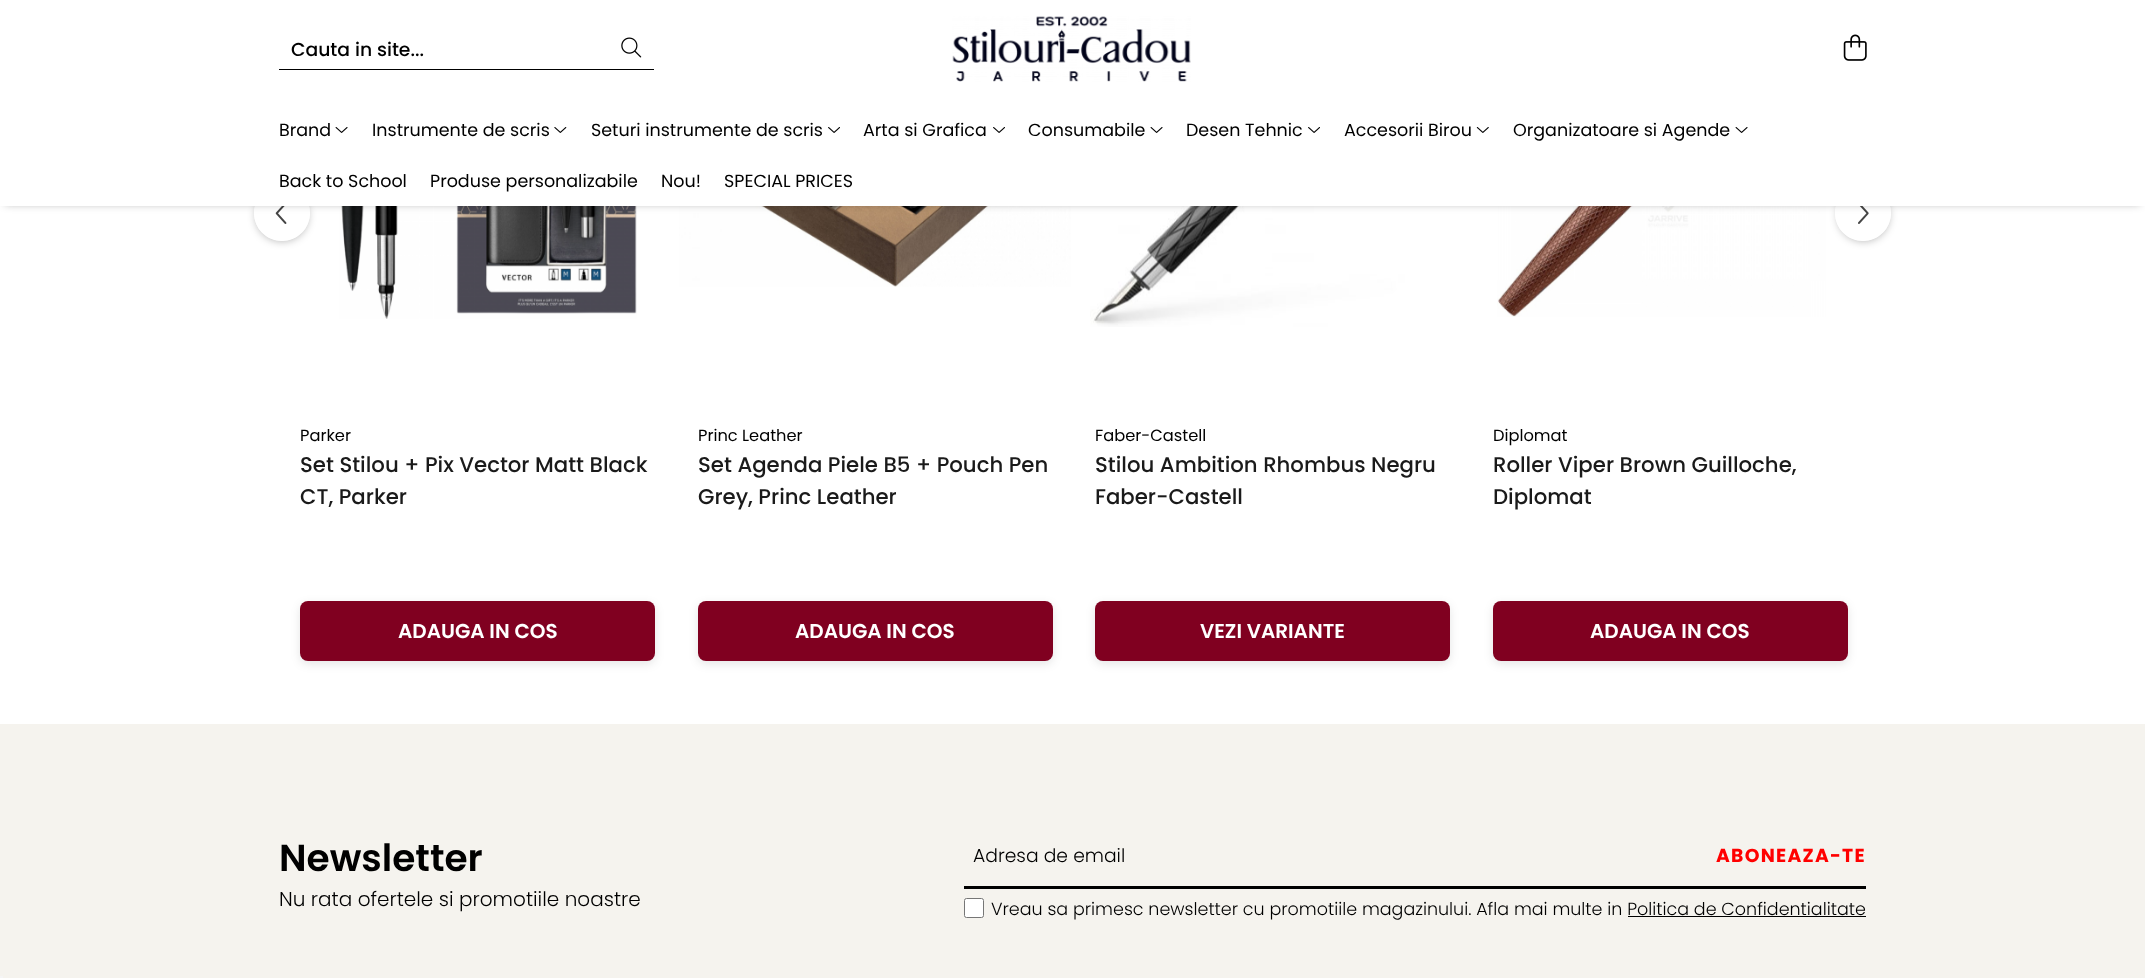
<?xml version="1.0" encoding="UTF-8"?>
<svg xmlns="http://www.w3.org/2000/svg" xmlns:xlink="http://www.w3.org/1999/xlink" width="2145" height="978">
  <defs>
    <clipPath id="clip1"><path d="M 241 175 h 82 v 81 h -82 z m 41 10 c 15.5 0 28 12.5 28 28 c 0 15.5 -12.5 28 -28 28 c -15.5 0 -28 -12.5 -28 -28 c 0 -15.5 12.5 -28 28 -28 z" clip-rule="evenodd" /></clipPath>
    <clipPath id="clip2"><path d="M 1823 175 h 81 v 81 h -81 z m 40 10 c 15.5 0 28 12.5 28 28 c 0 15.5 -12.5 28 -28 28 c -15.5 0 -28 -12.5 -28 -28 c 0 -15.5 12.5 -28 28 -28 z" clip-rule="evenodd" /></clipPath>
  </defs>
  <rect width="100%" height="100%" fill="#ffffff" />
  <g clip-path="url(#clip1)">
    <rect x="256" y="190" width="52" height="51" rx="25.5" fill="#000000" fill-opacity="0.3" filter="blur(4.5px)" />
  </g>
  <circle cx="282" cy="213" r="28" fill="#ffffff" fill-opacity="0.85" />
  <image x="275" y="206" width="12" height="18" xlink:href="image8.png" />
  <image x="1497" y="206" width="329" height="111" xlink:href="image13.png" />
  <g clip-path="url(#clip2)">
    <rect x="1838" y="190" width="51" height="51" rx="25.5" fill="#000000" fill-opacity="0.3" filter="blur(4.5px)" />
  </g>
  <circle cx="1863" cy="213" r="28" fill="#ffffff" fill-opacity="0.85" />
  <image x="1858" y="206" width="11" height="18" xlink:href="image9.png" />
  <image x="339" y="206" width="298" height="113" xlink:href="image10.png" />
  <image x="679" y="206" width="392" height="81" xlink:href="image11.png" />
  <image x="1090" y="206" width="357" height="121" xlink:href="image12.png" />
  <rect x="5" y="8" width="2135" height="196" fill="#000000" fill-opacity="0.3" filter="blur(4.5px)" />
  <rect width="2145" height="206" fill="#ffffff" />
  <rect x="279" y="69" width="375" height="1" fill="#000000" />
  <image x="621" y="37" width="21" height="21" xlink:href="image1.png" />
  <image x="952" y="16" width="239" height="66" xlink:href="image2.png" />
  <image x="1843" y="34" width="24" height="27" xlink:href="image3.png" />
  <image x="335" y="127" width="13" height="6" xlink:href="image4.png" />
  <image x="554" y="127" width="13" height="6" xlink:href="image5.png" />
  <image x="828" y="127" width="12" height="6" xlink:href="image6.png" />
  <image x="993" y="127" width="12" height="6" xlink:href="image6.png" />
  <image x="1150" y="127" width="13" height="6" xlink:href="image4.png" />
  <image x="1308" y="127" width="12" height="6" xlink:href="image6.png" />
  <image x="1476" y="127" width="13" height="6" xlink:href="image7.png" />
  <image x="1735" y="127" width="13" height="6" xlink:href="image4.png" />
  <rect x="300" y="604" width="355" height="60" rx="8" fill="#000000" fill-opacity="0.1" filter="blur(5px)" />
  <rect x="300" y="601" width="355" height="60" rx="8" fill="#800020" />
  <rect x="698" y="604" width="355" height="60" rx="8" fill="#000000" fill-opacity="0.1" filter="blur(5px)" />
  <rect x="698" y="601" width="355" height="60" rx="8" fill="#800020" />
  <rect x="1095" y="604" width="355" height="60" rx="8" fill="#000000" fill-opacity="0.1" filter="blur(5px)" />
  <rect x="1095" y="601" width="355" height="60" rx="8" fill="#800020" />
  <rect x="1493" y="604" width="355" height="60" rx="8" fill="#000000" fill-opacity="0.1" filter="blur(5px)" />
  <rect x="1493" y="601" width="355" height="60" rx="8" fill="#800020" />
  <rect y="724" width="2145" height="254" fill="#f5f3ee" />
  <rect x="964" y="886" width="902" height="3" fill="#000000" />
  <rect x="964.5" y="898.5" width="19" height="19" rx="2" fill="#ffffff" stroke="#767676" />
  <rect x="1628" y="916" width="238" height="1" fill="#000000" />
  <rect y="976" width="3" height="2" fill="#f5f5f5" />
  <text x="291" y="56" style="font-family: Poppins; font-size: 18.75px; font-weight: 500; fill: #000000">Cauta in site...</text>
  <text x="279" y="136" style="font-family: Poppins; font-size: 17.5px; fill: #000000">Brand</text>
  <text x="372" y="136" style="font-family: Poppins; font-size: 17.5px; fill: #000000">Instrumente de scris</text>
  <text x="591" y="136" style="font-family: Poppins; font-size: 17.5px; fill: #000000">Seturi instrumente de scris</text>
  <text x="863" y="136" style="font-family: Poppins; font-size: 17.5px; fill: #000000">Arta si Grafica</text>
  <text x="1028" y="136" style="font-family: Poppins; font-size: 17.5px; fill: #000000">Consumabile</text>
  <text x="1186" y="136" style="font-family: Poppins; font-size: 17.5px; fill: #000000">Desen Tehnic</text>
  <text x="1344" y="136" style="font-family: Poppins; font-size: 17.5px; fill: #000000">Accesorii Birou</text>
  <text x="1513" y="136" style="font-family: Poppins; font-size: 17.5px; fill: #000000">Organizatoare si Agende</text>
  <text x="279" y="187" style="font-family: Poppins; font-size: 17.5px; fill: #000000">Back to School</text>
  <text x="430" y="187" style="font-family: Poppins; font-size: 17.5px; fill: #000000">Produse personalizabile</text>
  <text x="661" y="187" style="font-family: Poppins; font-size: 17.5px; fill: #000000">Nou!</text>
  <text x="724" y="187" style="font-family: Poppins; font-size: 17.5px; fill: #000000">SPECIAL PRICES</text>
  <text x="300" y="441" style="font-family: Poppins; font-size: 16.25px; fill: #000000">Parker</text>
  <text x="300" y="472" style="font-family: Poppins; font-size: 21.25px; font-weight: 500; fill: #1a1a1a">Set Stilou + Pix Vector Matt Black</text>
  <text x="300" y="504" style="font-family: Poppins; font-size: 21.25px; font-weight: 500; fill: #1a1a1a">CT, Parker</text>
  <text x="398" y="638" style="font-family: Poppins; font-size: 20px; font-weight: 600; fill: #ffffff">ADAUGA IN COS</text>
  <text x="698" y="441" style="font-family: Poppins; font-size: 16.25px; fill: #000000">Princ Leather</text>
  <text x="698" y="472" style="font-family: Poppins; font-size: 21.25px; font-weight: 500; fill: #1a1a1a">Set Agenda Piele B5 + Pouch Pen</text>
  <text x="698" y="504" style="font-family: Poppins; font-size: 21.25px; font-weight: 500; fill: #1a1a1a">Grey, Princ Leather</text>
  <text x="795" y="638" style="font-family: Poppins; font-size: 20px; font-weight: 600; fill: #ffffff">ADAUGA IN COS</text>
  <text x="1095" y="441" style="font-family: Poppins; font-size: 16.25px; fill: #000000">Faber-Castell</text>
  <text x="1095" y="472" style="font-family: Poppins; font-size: 21.25px; font-weight: 500; fill: #1a1a1a">Stilou Ambition Rhombus Negru</text>
  <text x="1095" y="504" style="font-family: Poppins; font-size: 21.25px; font-weight: 500; fill: #1a1a1a">Faber-Castell</text>
  <text x="1200" y="638" style="font-family: Poppins; font-size: 20px; font-weight: 600; fill: #ffffff">VEZI VARIANTE</text>
  <text x="1493" y="441" style="font-family: Poppins; font-size: 16.25px; fill: #000000">Diplomat</text>
  <text x="1493" y="472" style="font-family: Poppins; font-size: 21.25px; font-weight: 500; fill: #1a1a1a">Roller Viper Brown Guilloche,</text>
  <text x="1493" y="504" style="font-family: Poppins; font-size: 21.25px; font-weight: 500; fill: #1a1a1a">Diplomat</text>
  <text x="1590" y="638" style="font-family: Poppins; font-size: 20px; font-weight: 600; fill: #ffffff">ADAUGA IN COS</text>
  <text x="279" y="871" style="font-family: Poppins; font-size: 37.5px; font-weight: 600; fill: #000000">Newsletter</text>
  <text x="279" y="906" style="font-family: Poppins; font-size: 20px; font-weight: 300; fill: #000000">Nu rata ofertele si promotiile noastre</text>
  <text x="973" y="862" style="font-family: Poppins; font-size: 18.75px; font-weight: 300; fill: #000000">Adresa de email</text>
  <text x="1716" y="862" style="font-family: Poppins; font-size: 18.75px; font-weight: bold; letter-spacing: 1.25px; fill: #ff0000">ABONEAZA-TE</text>
  <text x="991" y="915" style="font-family: Poppins; font-size: 17.5px; font-weight: 300; fill: #000000">Vreau sa primesc newsletter cu promotiile magazinului. Afla mai multe in Politica de Confidentialitate</text>
</svg>
